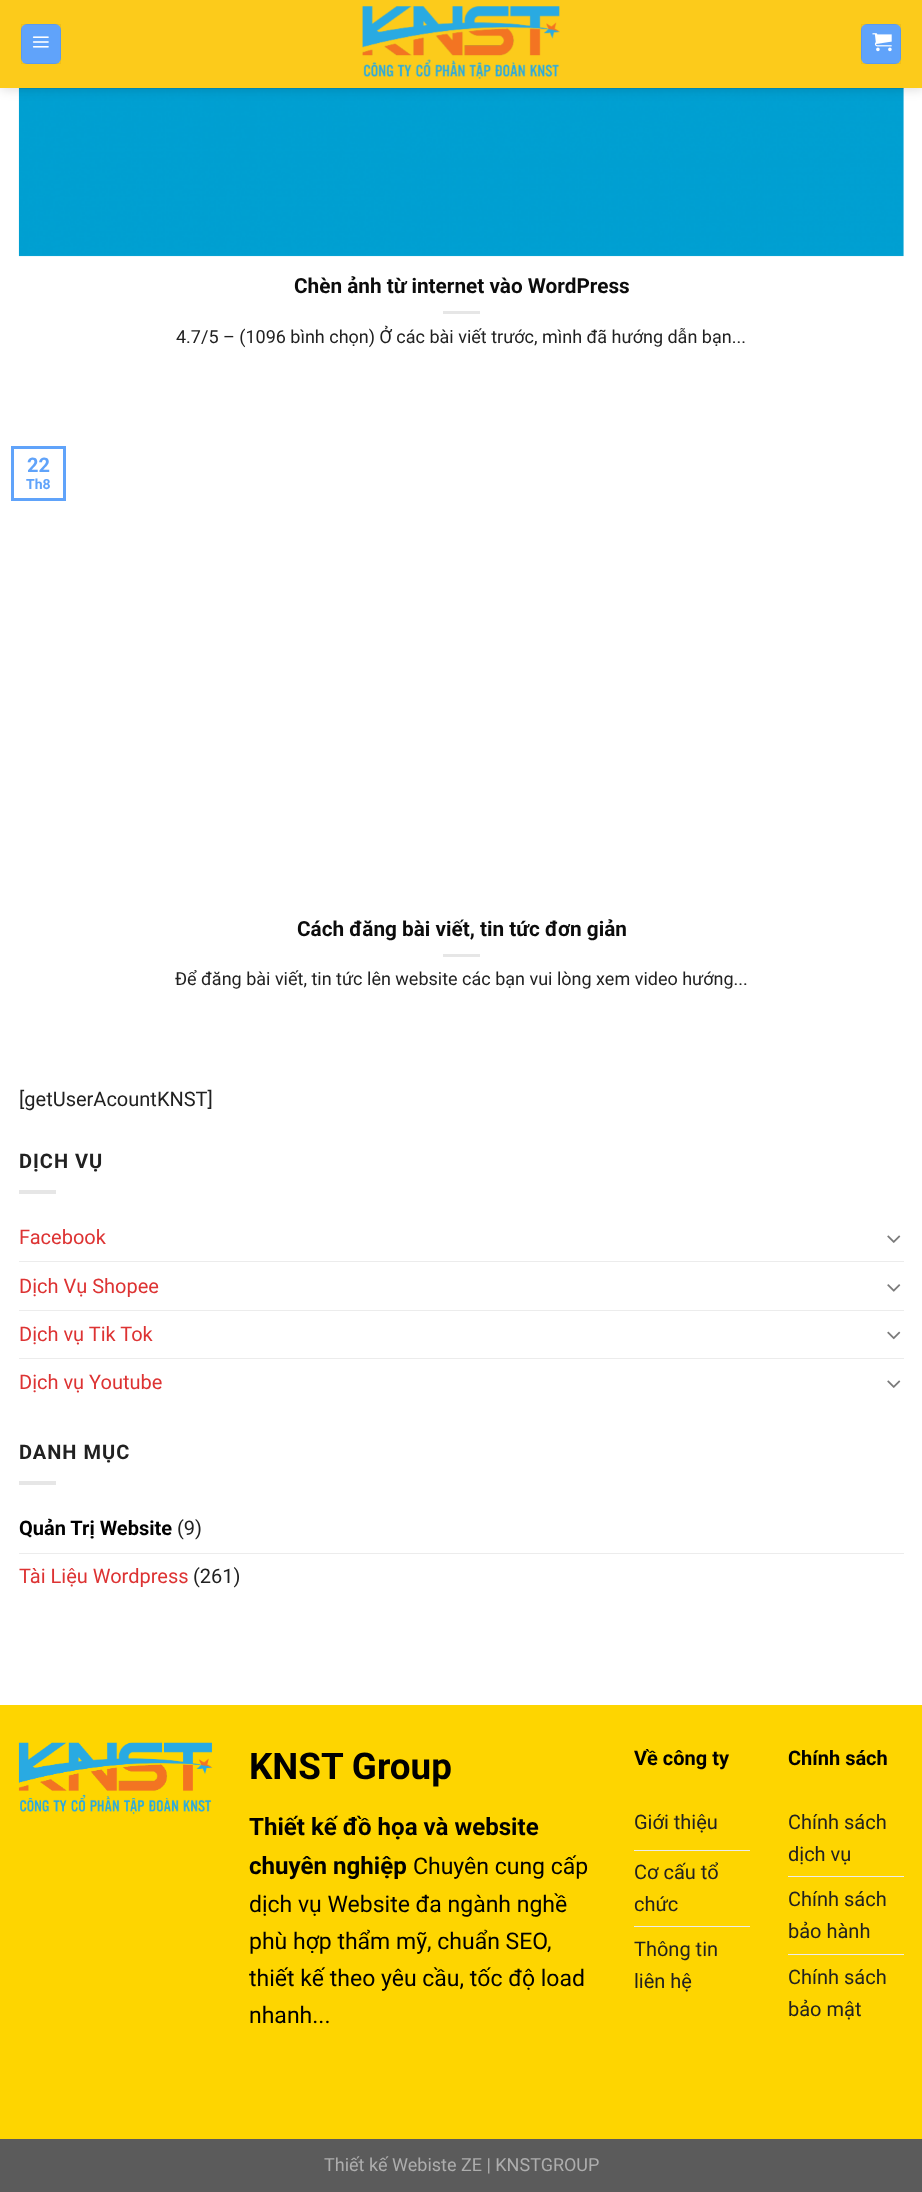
<?xml version="1.0" encoding="UTF-8"?>
<svg xmlns="http://www.w3.org/2000/svg" xmlns:xlink="http://www.w3.org/1999/xlink" width="922" height="2192">
  <rect width="100%" height="100%" fill="#ffffff" />
  <image x="18" y="88" width="886" height="169" xlink:href="image4.png" />
  <rect x="1" y="1" width="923" height="88" fill="#000000" fill-opacity="0.15" filter="blur(6px)" />
  <rect width="922" height="88" fill="#fccb1b" />
  <rect x="21" y="24" width="40" height="40" rx="6" fill="#60a3fa" />
  <rect x="21.5" y="24.5" width="39" height="39" fill="none" stroke="#000000" stroke-opacity="0.05" />
  <image x="32" y="36" width="17" height="12" xlink:href="image1.png" />
  <image x="362" y="6" width="198" height="73" xlink:href="image2.png" />
  <rect x="861" y="24" width="40" height="40" rx="6" fill="#60a3fa" />
  <rect x="861.5" y="24.5" width="39" height="39" fill="none" stroke="#000000" stroke-opacity="0.05" />
  <image x="872" y="33" width="20" height="19" xlink:href="image3.png" />
  <rect x="19" y="88" width="885" height="1" fill="#212121" fill-opacity="0.1" />
  <rect x="443" y="311" width="37" height="3" fill="#e6e6e6" />
  <rect x="12.5" y="447.5" width="52" height="52" fill="none" stroke="#60a3fa" stroke-width="3" />
  <rect x="443" y="954" width="37" height="3" fill="#e6e6e6" />
  <rect x="19" y="1190" width="37" height="4" fill="#e6e6e6" />
  <image x="887" y="1235" width="14" height="8" xlink:href="image5.png" />
  <rect x="19" y="1261" width="885" height="1" fill="#ececec" />
  <image x="887" y="1284" width="14" height="8" xlink:href="image6.png" />
  <rect x="19" y="1310" width="885" height="1" fill="#ececec" />
  <image x="887" y="1331" width="14" height="9" xlink:href="image7.png" />
  <rect x="19" y="1358" width="885" height="1" fill="#ececec" />
  <image x="887" y="1380" width="14" height="8" xlink:href="image5.png" />
  <rect x="19" y="1481" width="37" height="4" fill="#e6e6e6" />
  <rect x="19" y="1553" width="885" height="1" fill="#ececec" />
  <rect y="1705" width="922" height="434" fill="#fed500" />
  <image x="18" y="1742" width="195" height="73" xlink:href="image8.png" />
  <rect x="634" y="1850" width="116" height="1" fill="#ececec" />
  <rect x="634" y="1926" width="116" height="1" fill="#ececec" />
  <rect x="788" y="1876" width="116" height="1" fill="#ececec" />
  <rect x="788" y="1954" width="116" height="1" fill="#ececec" />
  <rect y="2139" width="922" height="53" fill="#5b5b5b" />
  <text x="294" y="293" style="font-family: Roboto; font-size: 20.75px; font-weight: bold; fill: #0c0c0c">Chèn ảnh từ internet vào WordPress</text>
  <text x="176" y="343" style="font-family: Roboto; font-size: 18px; fill: #212121">4.7/5 – (1096 bình chọn) Ở các bài viết trước, mình đã hướng dẫn bạn...</text>
  <text x="27" y="472" style="font-family: Roboto; font-size: 20px; font-weight: bold; fill: #60a3fa">22</text>
  <text x="26" y="489" style="font-family: Roboto; font-size: 14px; font-weight: bold; fill: #60a3fa">Th8</text>
  <text x="297" y="936" style="font-family: Roboto; font-size: 20.75px; font-weight: bold; fill: #0c0c0c">Cách đăng bài viết, tin tức đơn giản</text>
  <text x="175" y="985" style="font-family: Roboto; font-size: 18px; fill: #212121">Để đăng bài viết, tin tức lên website các bạn vui lòng xem video hướng...</text>
  <text x="19" y="1106" style="font-family: Roboto; font-size: 20px; fill: #212121">[getUserAcountKNST]</text>
  <text x="19" y="1168" style="font-family: Roboto; font-size: 20px; font-weight: bold; letter-spacing: 1px; fill: #212121">DỊCH VỤ</text>
  <text x="19" y="1244" style="font-family: Roboto; font-size: 20px; fill: #dd3333">Facebook</text>
  <text x="19" y="1293" style="font-family: Roboto; font-size: 20px; fill: #dd3333">Dịch Vụ Shopee</text>
  <text x="19" y="1341" style="font-family: Roboto; font-size: 20px; fill: #dd3333">Dịch vụ Tik Tok</text>
  <text x="19" y="1389" style="font-family: Roboto; font-size: 20px; fill: #dd3333">Dịch vụ Youtube</text>
  <text x="19" y="1459" style="font-family: Roboto; font-size: 20px; font-weight: bold; letter-spacing: 1px; fill: #212121">DANH MỤC</text>
  <text x="19" y="1535" style="font-family: Roboto; font-size: 20px; font-weight: bold; fill: #000000">Quản Trị Website</text>
  <text x="177" y="1535" style="font-family: Roboto; font-size: 20px; fill: #212121">(9)</text>
  <text x="19" y="1583" style="font-family: Roboto; font-size: 20px; fill: #dd3333">Tài Liệu Wordpress</text>
  <text x="193" y="1583" style="font-family: Roboto; font-size: 20px; fill: #212121">(261)</text>
  <text x="249" y="1779" style="font-family: Roboto; font-size: 36.75px; font-weight: bold; fill: #000000">KNST Group</text>
  <text x="249" y="1835" style="font-family: Roboto; font-size: 24.1px; font-weight: bold; fill: #000000">Thiết kế đồ họa và website</text>
  <text x="249" y="1874" style="font-family: Roboto; font-size: 24.1px; font-weight: bold; fill: #000000">chuyên nghiệp</text>
  <text x="413" y="1874" style="font-family: Roboto; font-size: 23px; fill: #000000">Chuyên cung cấp</text>
  <text x="249" y="1912" style="font-family: Roboto; font-size: 23px; fill: #000000">dịch vụ Website đa ngành nghề</text>
  <text x="249" y="1949" style="font-family: Roboto; font-size: 23px; fill: #000000">phù hợp thẩm mỹ, chuẩn SEO,</text>
  <text x="249" y="1986" style="font-family: Roboto; font-size: 23px; fill: #000000">thiết kế theo yêu cầu, tốc độ load</text>
  <text x="249" y="2023" style="font-family: Roboto; font-size: 23px; fill: #000000">nhanh...</text>
  <text x="634" y="1765" style="font-family: Roboto; font-size: 20px; font-weight: bold; fill: #000000">Về công ty</text>
  <text x="634" y="1829" style="font-family: Roboto; font-size: 20px; fill: #212121">Giới thiệu</text>
  <text x="634" y="1879" style="font-family: Roboto; font-size: 20px; fill: #212121">Cơ cấu tổ</text>
  <text x="634" y="1911" style="font-family: Roboto; font-size: 20px; fill: #212121">chức</text>
  <text x="634" y="1956" style="font-family: Roboto; font-size: 20px; fill: #212121">Thông tin</text>
  <text x="634" y="1988" style="font-family: Roboto; font-size: 20px; fill: #212121">liên hệ</text>
  <text x="788" y="1765" style="font-family: Roboto; font-size: 20px; font-weight: bold; fill: #000000">Chính sách</text>
  <text x="788" y="1829" style="font-family: Roboto; font-size: 20px; fill: #212121">Chính sách</text>
  <text x="788" y="1861" style="font-family: Roboto; font-size: 20px; fill: #212121">dịch vụ</text>
  <text x="788" y="1906" style="font-family: Roboto; font-size: 20px; fill: #212121">Chính sách</text>
  <text x="788" y="1938" style="font-family: Roboto; font-size: 20px; fill: #212121">bảo hành</text>
  <text x="788" y="1984" style="font-family: Roboto; font-size: 20px; fill: #212121">Chính sách</text>
  <text x="788" y="2016" style="font-family: Roboto; font-size: 20px; fill: #212121">bảo mật</text>
  <text x="324" y="2171" style="font-family: Roboto; font-size: 18px; fill: #adadad">Thiết kế Webiste ZE | KNSTGROUP</text>
</svg>
